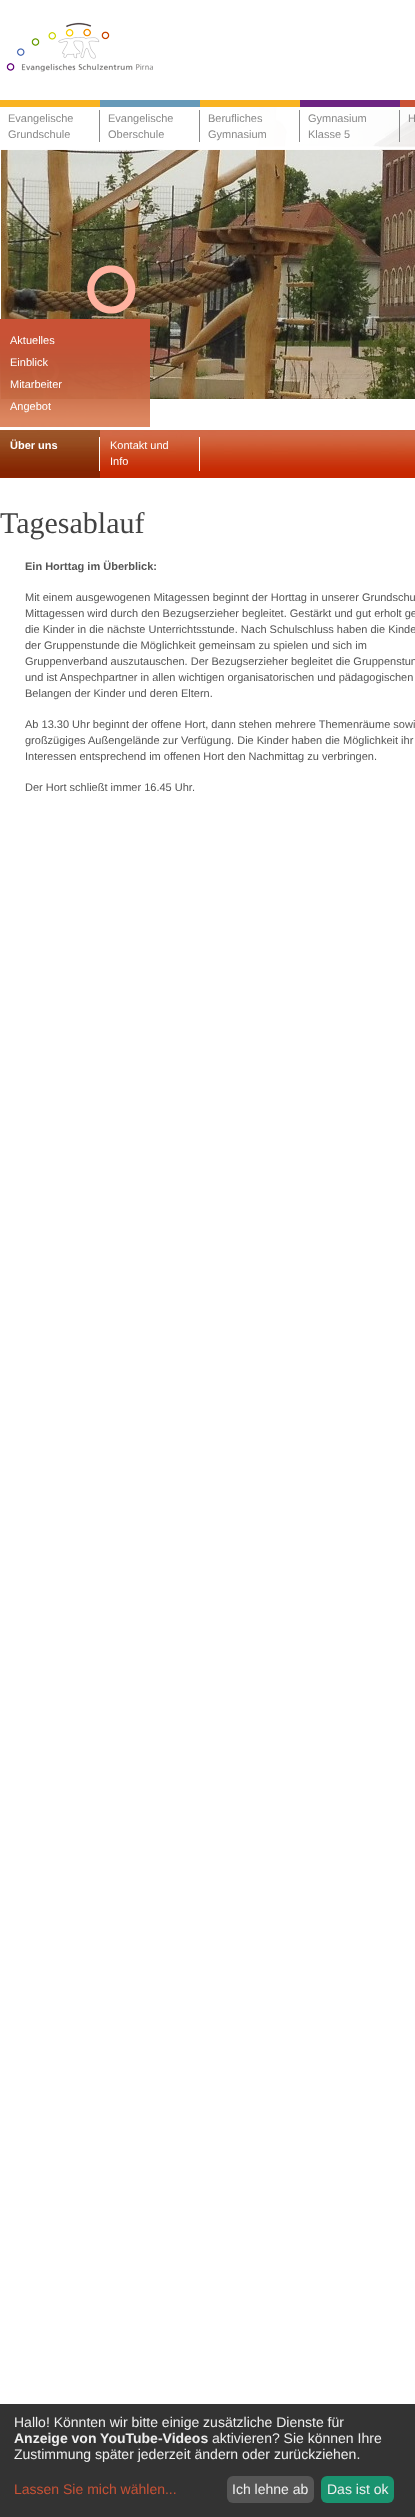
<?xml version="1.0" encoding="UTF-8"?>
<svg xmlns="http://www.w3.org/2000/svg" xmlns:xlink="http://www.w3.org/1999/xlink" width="415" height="2517">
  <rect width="100%" height="100%" fill="#ffffff" />
  <image x="6" y="22" width="147" height="50" xlink:href="image1.png" />
  <image x="1" y="107" width="414" height="292" xlink:href="image2.png" />
  <image x="0" y="107" width="136" height="292" xlink:href="image3.png" />
  <image x="1" y="107" width="414" height="43" xlink:href="image4.png" />
  <rect y="100" width="100" height="7" fill="#f9b321" />
  <rect x="99" y="110" width="1" height="32" fill="#898989" />
  <rect x="100" y="100" width="100" height="7" fill="#669ab9" />
  <rect x="199" y="110" width="1" height="32" fill="#898989" />
  <rect x="200" y="100" width="100" height="7" fill="#f9b321" />
  <rect x="299" y="110" width="1" height="32" fill="#898989" />
  <rect x="300" y="100" width="100" height="7" fill="#6d2482" />
  <rect x="399" y="110" width="1" height="32" fill="#898989" />
  <rect x="400" y="100" width="15" height="7" fill="#c95236" />
  <image x="100" y="430" width="315" height="48" xlink:href="image5.png" />
  <image x="0" y="430" width="100" height="48" xlink:href="image6.png" />
  <image x="0" y="319" width="150" height="108" xlink:href="image7.png" />
  <rect x="99" y="437" width="1" height="34" fill="#ffffff" />
  <rect x="199" y="437" width="1" height="34" fill="#ffffff" />
  <rect y="2404" width="415" height="113" fill="#333333" />
  <rect x="227" y="2476" width="87" height="27" rx="6" fill="#555555" />
  <rect x="321" y="2476" width="73" height="27" rx="6" fill="#1a936f" />
  <text x="8" y="122" style="font-family: Liberation Sans; font-size: 11px; fill: #898989">Evangelische</text>
  <text x="8" y="138" style="font-family: Liberation Sans; font-size: 11px; fill: #898989">Grundschule</text>
  <text x="108" y="122" style="font-family: Liberation Sans; font-size: 11px; fill: #898989">Evangelische</text>
  <text x="108" y="138" style="font-family: Liberation Sans; font-size: 11px; fill: #898989">Oberschule</text>
  <text x="208" y="122" style="font-family: Liberation Sans; font-size: 11px; fill: #898989">Berufliches</text>
  <text x="208" y="138" style="font-family: Liberation Sans; font-size: 11px; fill: #898989">Gymnasium</text>
  <text x="308" y="122" style="font-family: Liberation Sans; font-size: 11px; fill: #898989">Gymnasium</text>
  <text x="308" y="138" style="font-family: Liberation Sans; font-size: 11px; fill: #898989">Klasse 5</text>
  <text x="408" y="122" style="font-family: Liberation Sans; font-size: 11px; fill: #898989">H</text>
  <text x="10" y="344" style="font-family: Liberation Sans; font-size: 11px; fill: #ffffff">Aktuelles</text>
  <text x="10" y="366" style="font-family: Liberation Sans; font-size: 11px; fill: #ffffff">Einblick</text>
  <text x="10" y="388" style="font-family: Liberation Sans; font-size: 11px; fill: #ffffff">Mitarbeiter</text>
  <text x="10" y="410" style="font-family: Liberation Sans; font-size: 11px; fill: #ffffff">Angebot</text>
  <text x="10" y="449" style="font-family: Liberation Sans; font-size: 11px; font-weight: bold; fill: #ffffff">Über uns</text>
  <text x="110" y="449" style="font-family: Liberation Sans; font-size: 11px; fill: #ffffff">Kontakt und</text>
  <text x="110" y="465" style="font-family: Liberation Sans; font-size: 11px; fill: #ffffff">Info</text>
  <text x="0" y="533" style="font-family: Liberation Serif; font-size: 30px; fill: #434343">Tagesablauf</text>
  <text x="25" y="570" style="font-family: Liberation Sans; font-size: 11px; font-weight: bold; fill: #555555">Ein Horttag im Überblick:</text>
  <text x="25" y="601" style="font-family: Liberation Sans; font-size: 11px; fill: #555555">Mit einem ausgewogenen Mitagessen beginnt der Horttag in unserer Grundschu</text>
  <text x="25" y="617" style="font-family: Liberation Sans; font-size: 11px; fill: #555555">Mittagessen wird durch den Bezugserzieher begleitet. Gestärkt und gut erholt ge</text>
  <text x="25" y="633" style="font-family: Liberation Sans; font-size: 11px; fill: #555555">die Kinder in die nächste Unterrichtsstunde. Nach Schulschluss haben die Kinde</text>
  <text x="25" y="649" style="font-family: Liberation Sans; font-size: 11px; fill: #555555">der Gruppenstunde die Möglichkeit gemeinsam zu spielen und sich im</text>
  <text x="25" y="665" style="font-family: Liberation Sans; font-size: 11px; fill: #555555">Gruppenverband auszutauschen. Der Bezugserzieher begleitet die Gruppenstun</text>
  <text x="25" y="681" style="font-family: Liberation Sans; font-size: 11px; fill: #555555">und ist Anspechpartner in allen wichtigen organisatorischen und pädagogischen</text>
  <text x="25" y="697" style="font-family: Liberation Sans; font-size: 11px; fill: #555555">Belangen der Kinder und deren Eltern.</text>
  <text x="25" y="728" style="font-family: Liberation Sans; font-size: 11px; fill: #555555">Ab 13.30 Uhr beginnt der offene Hort, dann stehen mehrere Themenräume sowi</text>
  <text x="25" y="744" style="font-family: Liberation Sans; font-size: 11px; fill: #555555">großzügiges Außengelände zur Verfügung. Die Kinder haben die Möglichkeit ihr</text>
  <text x="25" y="760" style="font-family: Liberation Sans; font-size: 11px; fill: #555555">Interessen entsprechend im offenen Hort den Nachmittag zu verbringen.</text>
  <text x="25" y="791" style="font-family: Liberation Sans; font-size: 11px; fill: #555555">Der Hort schließt immer 16.45 Uhr.</text>
  <text x="14" y="2427" style="font-family: Liberation Sans; font-size: 14px; fill: #eeeeee">Hallo! Könnten wir bitte einige zusätzliche Dienste für</text>
  <text x="14" y="2443" style="font-family: Liberation Sans; font-size: 14px; font-weight: bold; fill: #eeeeee">Anzeige von YouTube-Videos</text>
  <text x="212" y="2443" style="font-family: Liberation Sans; font-size: 14px; fill: #eeeeee">aktivieren? Sie können Ihre</text>
  <text x="14" y="2459" style="font-family: Liberation Sans; font-size: 14px; fill: #eeeeee">Zustimmung später jederzeit ändern oder zurückziehen.</text>
  <text x="14" y="2494" style="font-family: Liberation Sans; font-size: 14px; fill: #c95236">Lassen Sie mich wählen...</text>
  <text x="232" y="2494" style="font-family: Liberation Sans; font-size: 14px; fill: #eeeeee">Ich lehne ab</text>
  <text x="327" y="2494" style="font-family: Liberation Sans; font-size: 14px; fill: #eeeeee">Das ist ok</text>
</svg>
